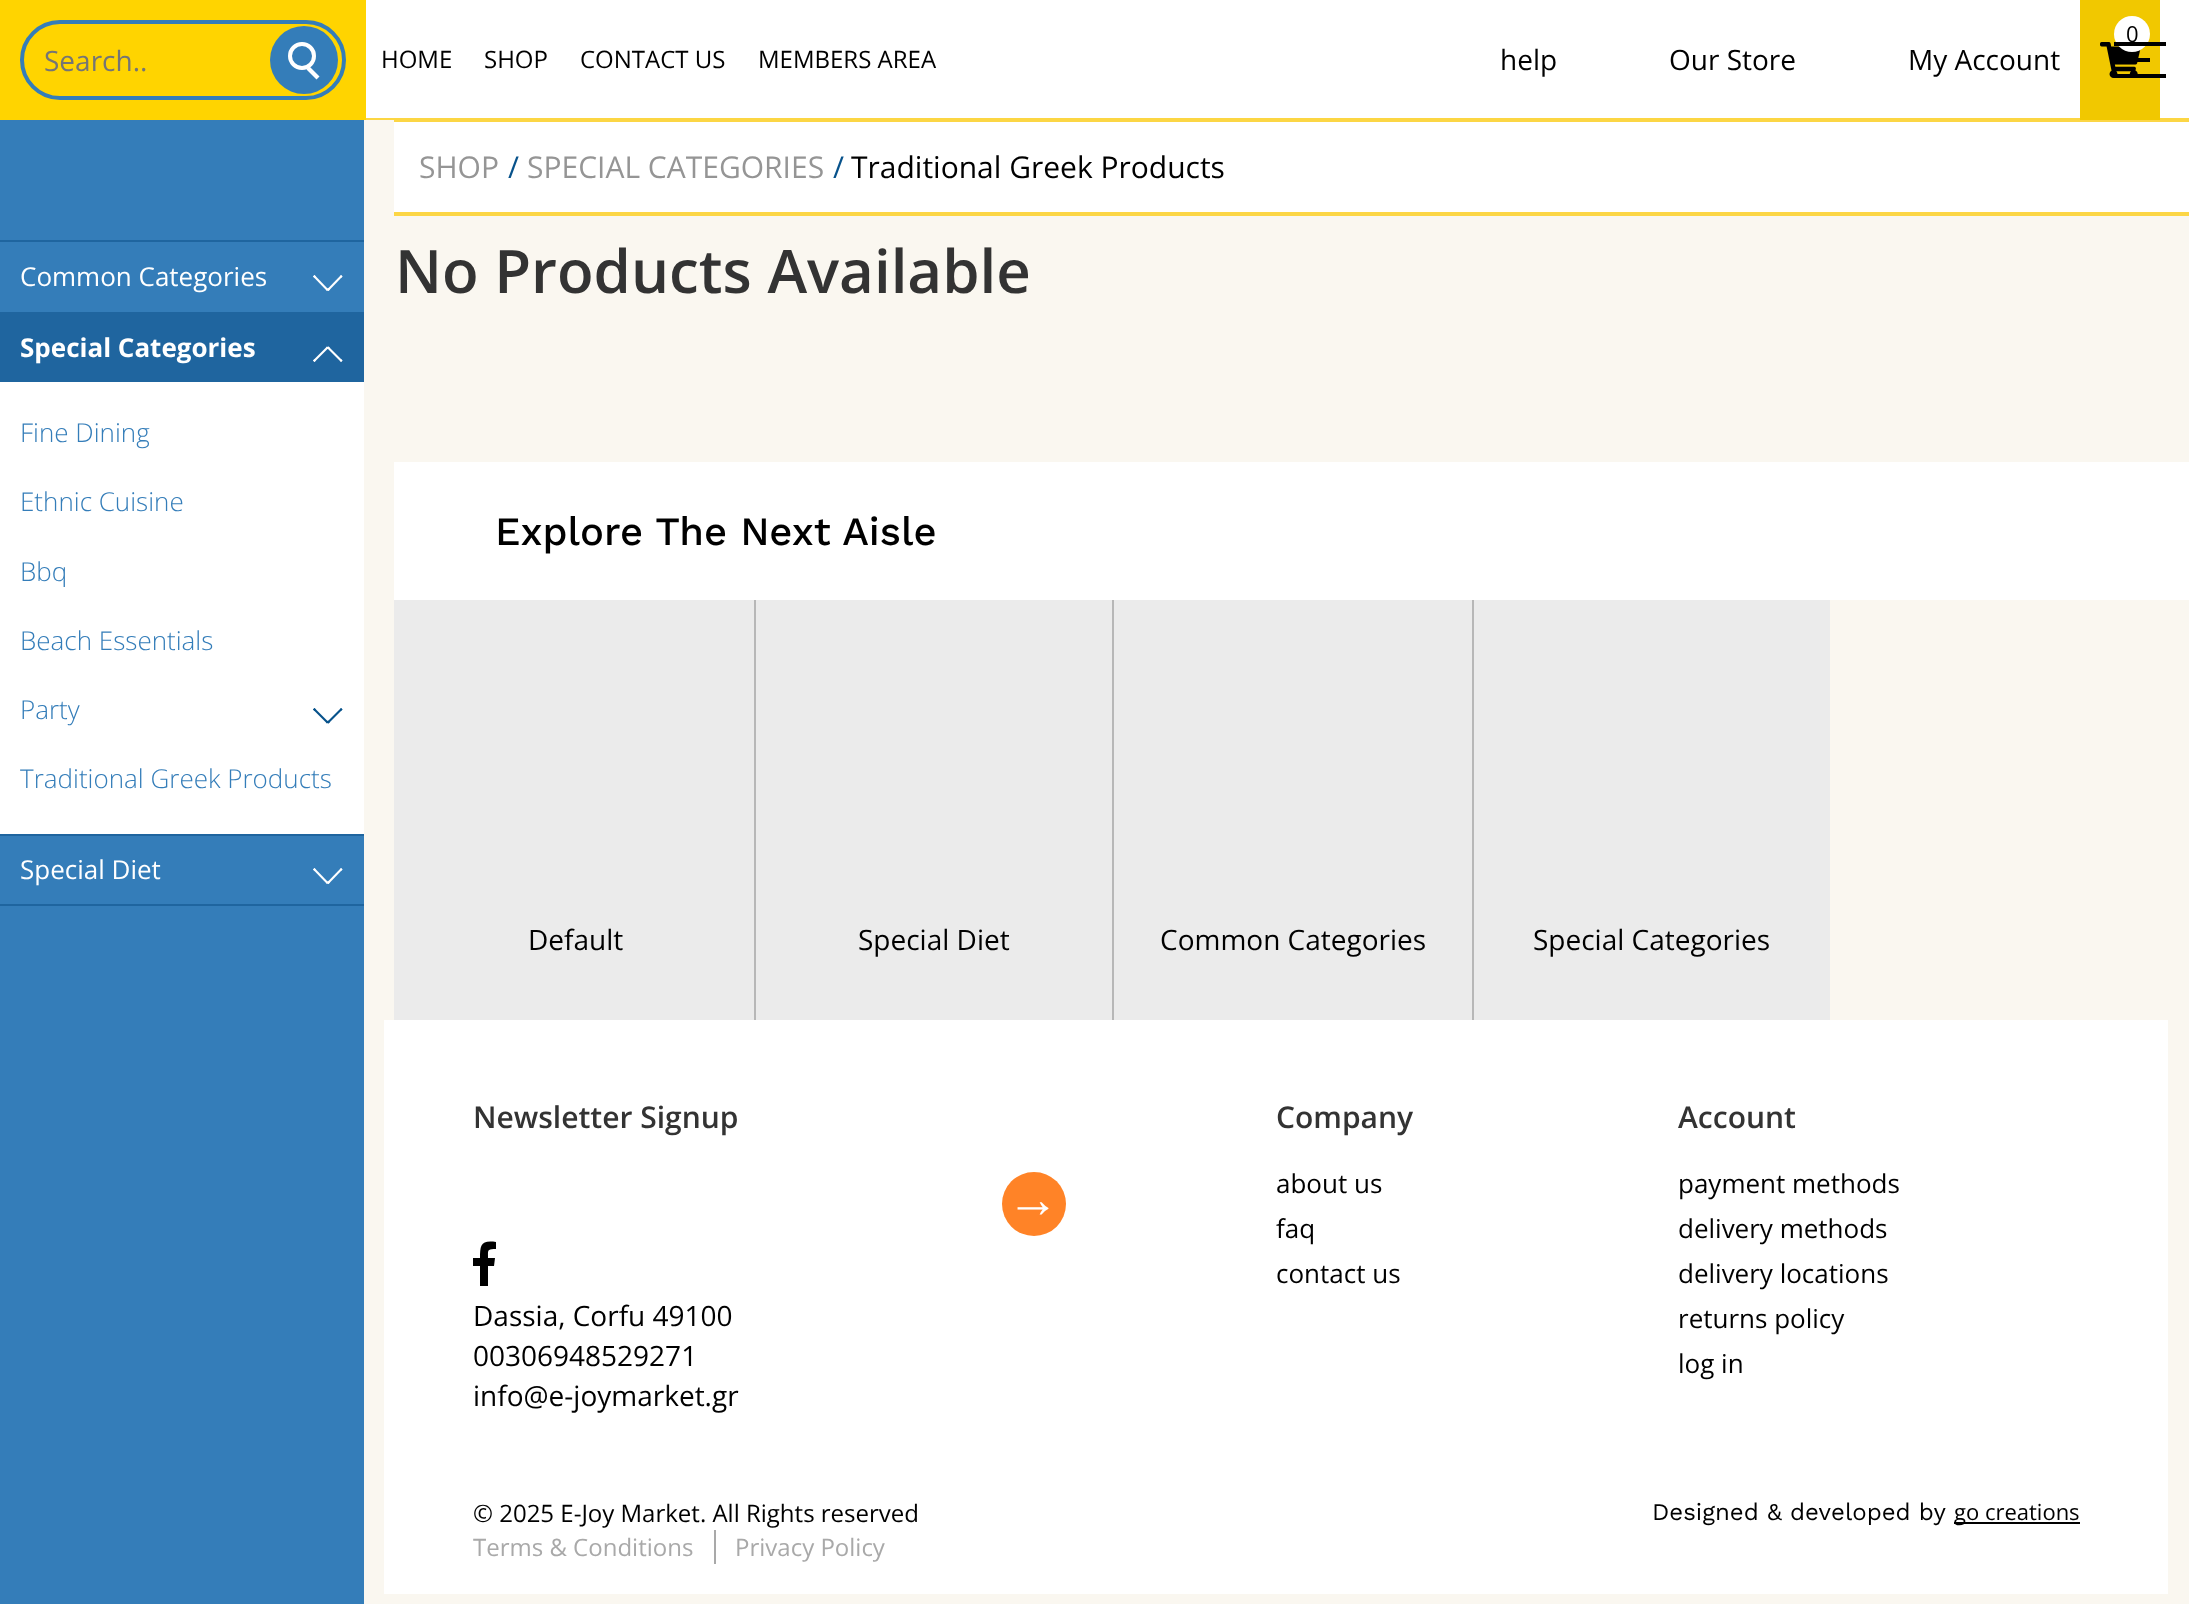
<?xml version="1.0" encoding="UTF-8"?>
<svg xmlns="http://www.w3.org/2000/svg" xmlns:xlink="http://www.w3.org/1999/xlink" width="2189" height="1604">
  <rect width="100%" height="100%" fill="#faf7f0" />
  <rect x="366" width="1823" height="118" fill="#ffffff" />
  <rect x="366" y="118" width="1823" height="2" fill="#fcd643" />
  <rect width="366" height="120" fill="#ffd400" />
  <rect x="22" y="22" width="322" height="76" rx="38" fill="none" stroke="#347db9" stroke-width="4" />
  <circle cx="304" cy="60" r="34" fill="#347db9" />
  <circle cx="302" cy="56" r="12" fill="none" stroke="#ffffff" stroke-width="4" />
  <path d="M 306.5 69.5 l 3 -3 l 10 10 l -3 3 z" fill="#ffffff" />
  <rect x="2080" width="80" height="120" fill="#f1c800" />
  <image x="2100" y="42" width="41" height="36" xlink:href="image1.png" />
  <circle cx="2132" cy="34" r="18" fill="#ffffff" />
  <rect x="2114" y="42" width="52" height="4" fill="#000000" />
  <rect x="2114" y="74" width="52" height="4" fill="#000000" />
  <rect x="2137" y="58" width="13" height="4" fill="#000000" />
  <rect y="120" width="364" height="1484" fill="#347db9" />
  <rect y="240" width="364" height="2" fill="#1f659f" />
  <rect y="312" width="364" height="70" fill="#1f659f" />
  <path d="M 327 291 l -14 -14.5 l 1.5 -1.5 l 14 14.5 z" fill="#ffffff" />
  <path d="M 314.5 278 l -1.5 -1.5 l 1.5 -1.5 l 1.5 1.5 z m 12.5 13 l -1 -1.5 l 1 -1.5 l 1.5 1.5 z" fill="#ffffff" />
  <path d="M 327 289.5 l 14 -14.5 l 1.5 1.5 l -14 14.5 z" fill="#ffffff" />
  <path d="M 340 276.5 l 1 -1.5 l 1.5 1.5 l -1.5 1.5 z m -13 13 l 1.5 -1.5 l 1.5 1.5 l -1.5 1.5 z" fill="#ffffff" />
  <rect y="834" width="364" height="2" fill="#1f659f" />
  <path d="M 328.5 348 l -14 14 l -1.5 -1.5 l 14 -14 z" fill="#ffffff" />
  <path d="M 316 360.5 l -1.5 1.5 l -1.5 -1.5 l 1.5 -1.5 z m 12.5 -12.5 l -1.5 1 l -1 -1 l 1 -1.5 z" fill="#ffffff" />
  <path d="M 328.5 346.5 l 14 14 l -1.5 1.5 l -14 -14 z" fill="#ffffff" />
  <path d="M 341 359 l 1.5 1.5 l -1.5 1.5 l -1 -1.5 z m -12.5 -12.5 l 1.5 1.5 l -1.5 1 l -1.5 -1 z" fill="#ffffff" />
  <rect y="382" width="364" height="452" fill="#ffffff" />
  <path d="M 327 723.5 l -14 -14 l 1.5 -1.5 l 14 14 z" fill="#07528b" />
  <path d="M 314.5 711 l -1.5 -1.5 l 1.5 -1.5 l 1.5 1.5 z m 12.5 12.5 l -1 -1.5 l 1 -1.5 l 1.5 1.5 z" fill="#07528b" />
  <path d="M 327 722 l 14 -14 l 1.5 1.5 l -14 14 z" fill="#07528b" />
  <path d="M 340 709.5 l 1 -1.5 l 1.5 1.5 l -1.5 1.5 z m -13 12.5 l 1.5 -1.5 l 1.5 1.5 l -1.5 1.5 z" fill="#07528b" />
  <rect y="904" width="364" height="2" fill="#1f659f" />
  <path d="M 327 884 l -14 -14.5 l 1.5 -1.5 l 14 14.5 z" fill="#ffffff" />
  <path d="M 314.5 871 l -1.5 -1.5 l 1.5 -1.5 l 1.5 1.5 z m 12.5 13 l -1 -1.5 l 1 -1.5 l 1.5 1.5 z" fill="#ffffff" />
  <path d="M 327 882.5 l 14 -14.5 l 1.5 1.5 l -14 14.5 z" fill="#ffffff" />
  <path d="M 340 869.5 l 1 -1.5 l 1.5 1.5 l -1.5 1.5 z m -13 13 l 1.5 -1.5 l 1.5 1.5 l -1.5 1.5 z" fill="#ffffff" />
  <rect x="394" y="122" width="1795" height="90" fill="#ffffff" />
  <rect x="394" y="120" width="1795" height="2" fill="#fcd645" />
  <rect x="394" y="212" width="1795" height="4" fill="#fcd645" />
  <rect x="394" y="462" width="1795" height="138" fill="#ffffff" />
  <rect x="394" y="600" width="360" height="420" fill="#ebebeb" />
  <rect x="756" y="600" width="356" height="420" fill="#ebebeb" />
  <rect x="754" y="600" width="2" height="420" fill="#b7b7b7" />
  <rect x="1114" y="600" width="358" height="420" fill="#ebebeb" />
  <rect x="1112" y="600" width="2" height="420" fill="#b7b7b7" />
  <rect x="1474" y="600" width="356" height="420" fill="#ebebeb" />
  <rect x="1472" y="600" width="2" height="420" fill="#b7b7b7" />
  <rect x="384" y="1020" width="1784" height="574" fill="#ffffff" />
  <circle cx="1034" cy="1204" r="32" fill="#ff8327" />
  <path d="M 480 1286 v -20 h -7 v -8 h 7 c 0 -13 1 -18 16 -16 v 7 c -9 0 -8 1 -8 9 h 7 l -1 8 h -6 v 20" fill="#000000" />
  <rect x="714" y="1530" width="2" height="34" fill="#a9a9a9" />
  <rect x="1954" y="1522" width="126" height="2" fill="#000000" />
  <text x="44" y="71" style="font-family: Open Sans; font-size: 28px; fill: #757575">Search..</text>
  <text x="381" y="68" style="font-family: Open Sans; font-size: 24px; fill: #000000">HOME</text>
  <text x="484" y="68" style="font-family: Open Sans; font-size: 24px; fill: #000000">SHOP</text>
  <text x="580" y="68" style="font-family: Open Sans; font-size: 24px; fill: #000000">CONTACT US</text>
  <text x="758" y="68" style="font-family: Open Sans; font-size: 24px; fill: #000000">MEMBERS AREA</text>
  <text x="2126" y="42" style="font-family: Open Sans; font-size: 22px; fill: #000000">0</text>
  <text x="1500" y="70" style="font-family: Open Sans; font-size: 28px; fill: #000000">help</text>
  <text x="1669" y="70" style="font-family: Open Sans; font-size: 28px; fill: #000000">Our Store</text>
  <text x="1908" y="70" style="font-family: Open Sans; font-size: 28px; fill: #000000">My Account</text>
  <text x="20" y="286" style="font-family: Open Sans; font-size: 26px; fill: #ffffff">Common Categories</text>
  <text x="20" y="357" style="font-family: Open Sans; font-size: 26px; font-weight: bold; fill: #ffffff">Special Categories</text>
  <text x="20" y="442" style="font-family: Open Sans; font-size: 26px; font-weight: 300; fill: #347db9">Fine Dining</text>
  <text x="20" y="511" style="font-family: Open Sans; font-size: 26px; font-weight: 300; fill: #347db9">Ethnic Cuisine</text>
  <text x="20" y="581" style="font-family: Open Sans; font-size: 26px; font-weight: 300; fill: #347db9">Bbq</text>
  <text x="20" y="650" style="font-family: Open Sans; font-size: 26px; font-weight: 300; fill: #347db9">Beach Essentials</text>
  <text x="20" y="719" style="font-family: Open Sans; font-size: 26px; font-weight: 300; fill: #347db9">Party</text>
  <text x="20" y="788" style="font-family: Open Sans; font-size: 26px; font-weight: 300; fill: #347db9">Traditional Greek Products</text>
  <text x="20" y="879" style="font-family: Open Sans; font-size: 26px; fill: #ffffff">Special Diet</text>
  <text x="419" y="178" style="font-family: Open Sans; font-size: 30px; fill: #959595">SHOP</text>
  <text x="508" y="178" style="font-family: Open Sans; font-size: 30px; fill: #07528b">/</text>
  <text x="527" y="178" style="font-family: Open Sans; font-size: 30px; fill: #959595">SPECIAL CATEGORIES</text>
  <text x="833" y="178" style="font-family: Open Sans; font-size: 30px; fill: #07528b">/</text>
  <text x="851" y="178" style="font-family: Open Sans; font-size: 30px; fill: #000000">Traditional Greek Products</text>
  <text x="395" y="293" style="font-family: Open Sans; font-size: 60px; font-weight: 600; fill: #333333">No Products Available</text>
  <text x="495" y="545" style="font-family: Work Sans; font-size: 40px; font-weight: 500; fill: #000000">Explore The Next Aisle</text>
  <text x="528" y="950" style="font-family: Open Sans; font-size: 28px; fill: #000000">Default</text>
  <text x="858" y="950" style="font-family: Open Sans; font-size: 28px; fill: #000000">Special Diet</text>
  <text x="1160" y="950" style="font-family: Open Sans; font-size: 28px; fill: #000000">Common Categories</text>
  <text x="1533" y="950" style="font-family: Open Sans; font-size: 28px; fill: #000000">Special Categories</text>
  <text x="473" y="1128" style="font-family: Open Sans; font-size: 30px; font-weight: 600; fill: #333333">Newsletter Signup</text>
  <text x="1007" y="1217" style="font-family: Liberation Sans; font-size: 52px; fill: #ffffff">→</text>
  <text x="473" y="1326" style="font-family: Open Sans; font-size: 28px; fill: #000000">Dassia, Corfu 49100</text>
  <text x="473" y="1366" style="font-family: Open Sans; font-size: 28px; fill: #000000">00306948529271</text>
  <text x="473" y="1406" style="font-family: Open Sans; font-size: 28px; fill: #000000">info@e-joymarket.gr</text>
  <text x="1276" y="1128" style="font-family: Open Sans; font-size: 30px; font-weight: 600; fill: #333333">Company</text>
  <text x="1276" y="1193" style="font-family: Open Sans; font-size: 26px; fill: #000000">about us</text>
  <text x="1276" y="1238" style="font-family: Open Sans; font-size: 26px; fill: #000000">faq</text>
  <text x="1276" y="1283" style="font-family: Open Sans; font-size: 26px; fill: #000000">contact us</text>
  <text x="1678" y="1128" style="font-family: Open Sans; font-size: 30px; font-weight: 600; fill: #333333">Account</text>
  <text x="1678" y="1193" style="font-family: Open Sans; font-size: 26px; fill: #000000">payment methods</text>
  <text x="1678" y="1238" style="font-family: Open Sans; font-size: 26px; fill: #000000">delivery methods</text>
  <text x="1678" y="1283" style="font-family: Open Sans; font-size: 26px; fill: #000000">delivery locations</text>
  <text x="1678" y="1328" style="font-family: Open Sans; font-size: 26px; fill: #000000">returns policy</text>
  <text x="1678" y="1373" style="font-family: Open Sans; font-size: 26px; fill: #000000">log in</text>
  <text x="473" y="1522" style="font-family: Open Sans; font-size: 24px; fill: #000000">© 2025 E-Joy Market. All Rights reserved</text>
  <text x="473" y="1556" style="font-family: Open Sans; font-size: 24px; fill: #a9a9a9">Terms &amp; Conditions</text>
  <text x="735" y="1556" style="font-family: Open Sans; font-size: 24px; fill: #a9a9a9">Privacy Policy</text>
  <text x="1652" y="1520" style="font-family: Work Sans; font-size: 24px; fill: #000000">Designed &amp; developed by</text>
  <text x="1954" y="1520" style="font-family: Open Sans; font-size: 22px; fill: #000000">go creations</text>
</svg>
